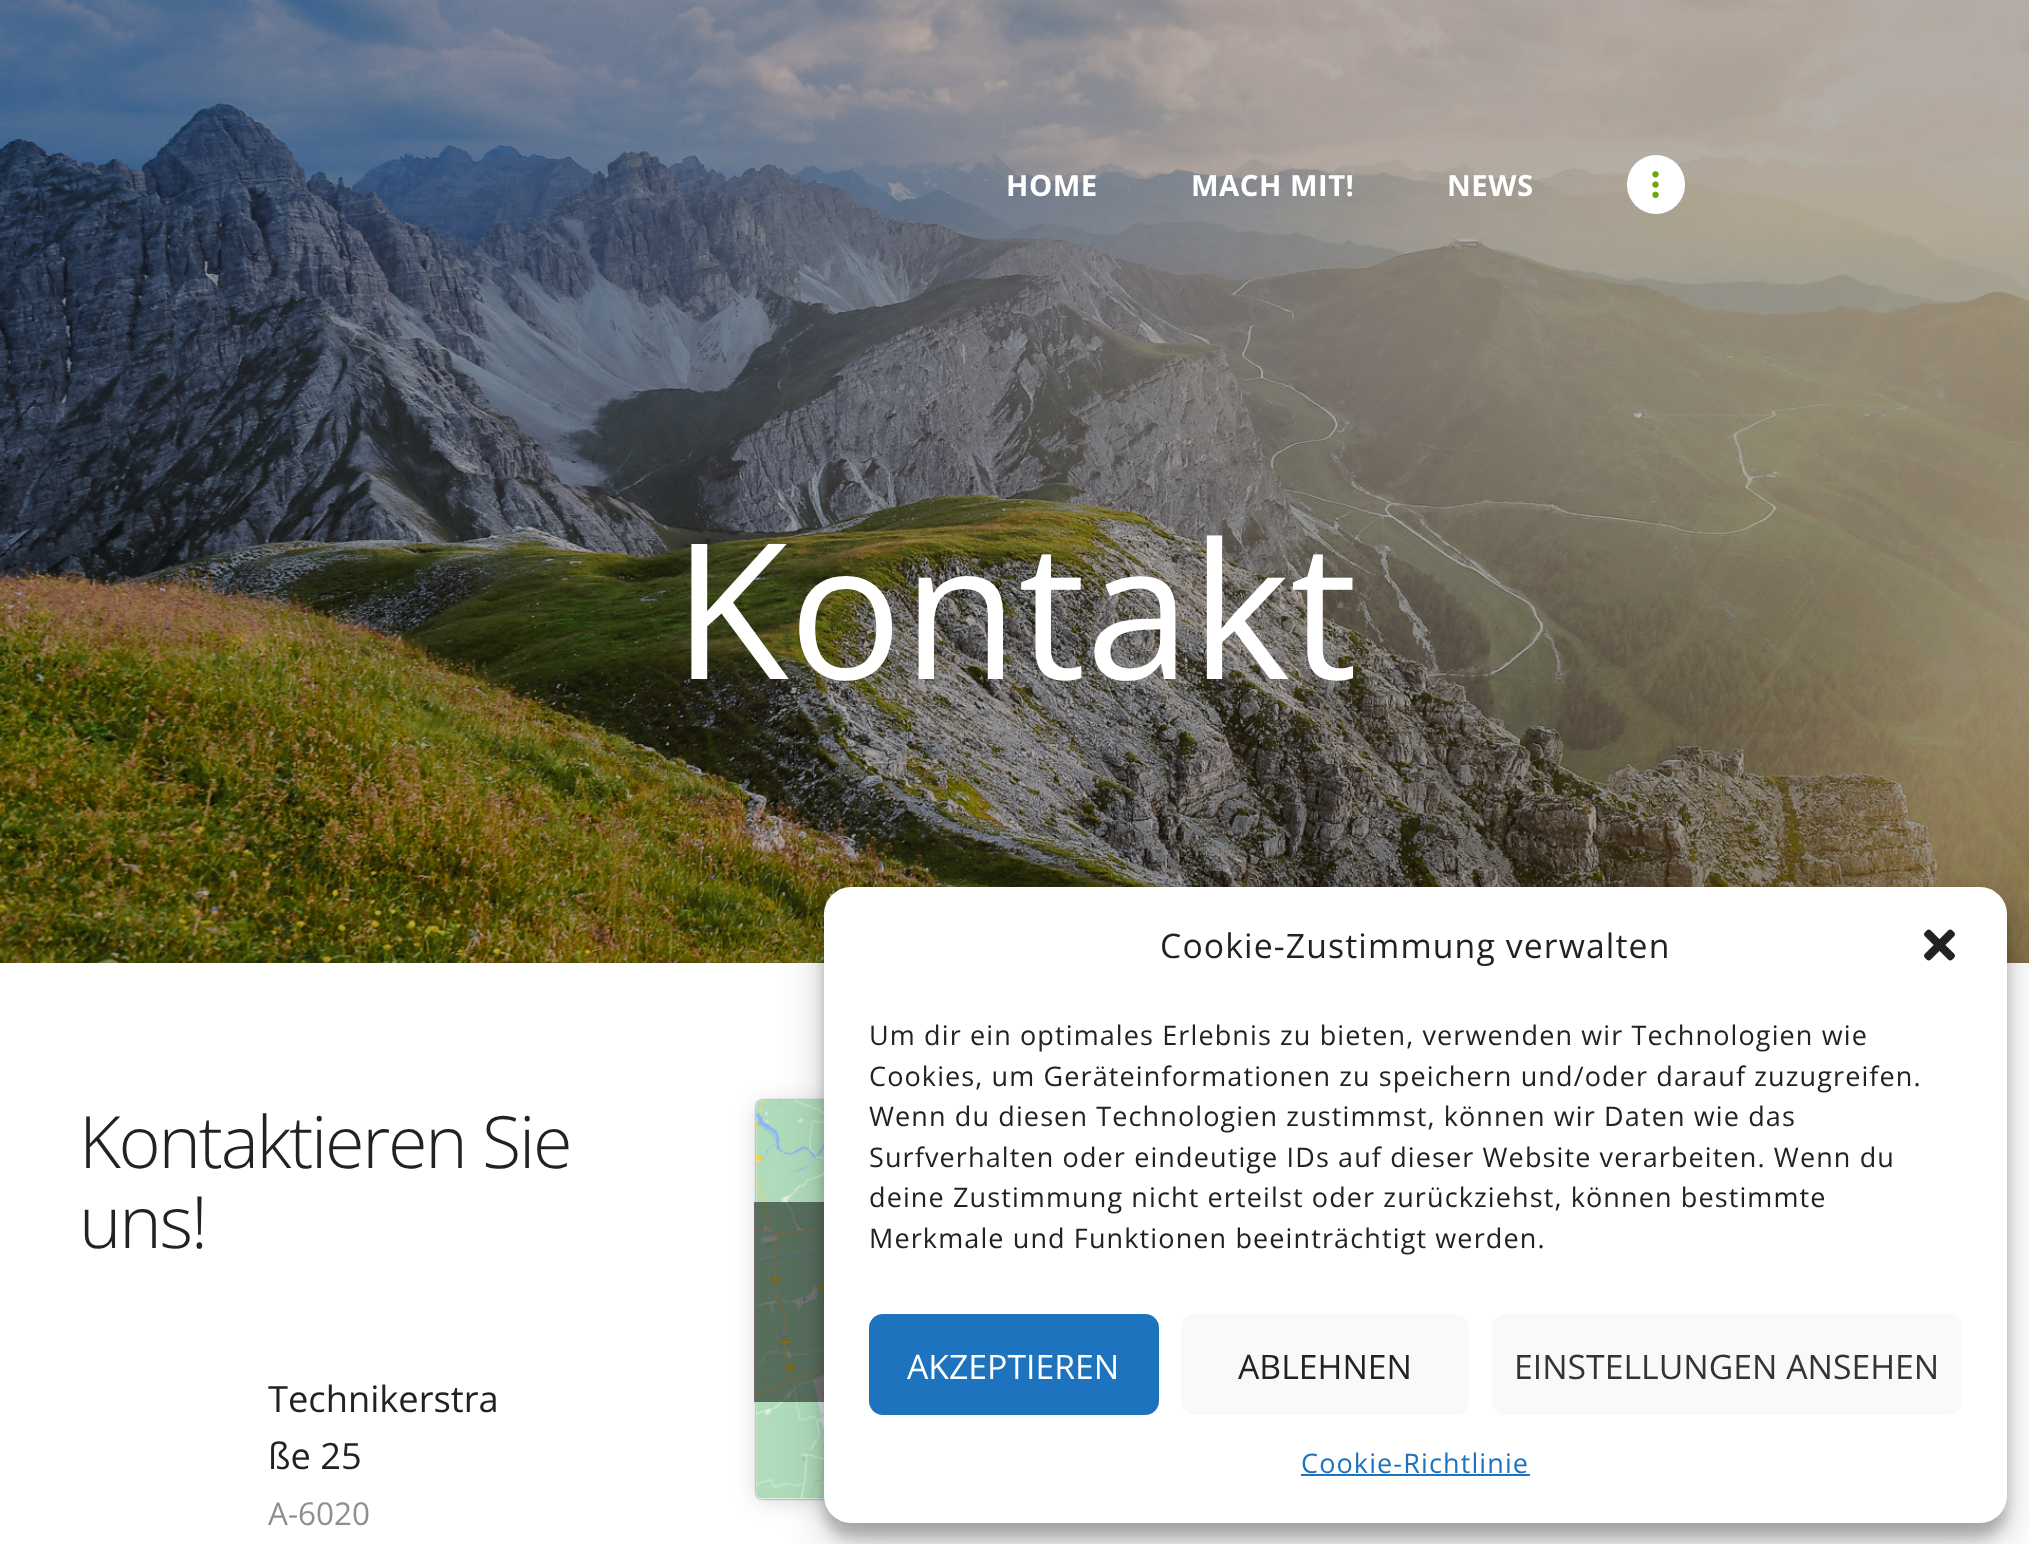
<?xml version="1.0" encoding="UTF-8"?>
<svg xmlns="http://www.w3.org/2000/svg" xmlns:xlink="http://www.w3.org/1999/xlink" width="2029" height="1544">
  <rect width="100%" height="100%" fill="#ffffff" />
  <image x="0" y="0" width="2029" height="963" xlink:href="image1.png" />
  <rect x="1627" y="155" width="58" height="59" rx="29" fill="#ffffff" />
  <image x="1652" y="171" width="7" height="27" xlink:href="image2.png" />
  <rect x="756" y="1100" width="7" height="399" fill="#f7f7f7" />
  <rect x="756" y="1103" width="551" height="398" rx="7" fill="#000000" fill-opacity="0.15" filter="blur(11px)" />
  <rect x="756" y="1100" width="551" height="399" rx="7" fill="#000000" fill-opacity="0.5" filter="blur(1px)" />
  <rect x="756" y="1100" width="551" height="399" rx="7" fill="#ffffff" />
  <image x="755" y="1100" width="70" height="399" xlink:href="image3.png" />
  <rect x="754" y="1202" width="70" height="200" fill="#000000" fill-opacity="0.5" />
  <rect x="824" y="900" width="1183" height="637" rx="27" fill="#000000" fill-opacity="0.23" filter="blur(7px)" />
  <rect x="824" y="909" width="1183" height="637" rx="27" fill="#000000" fill-opacity="0.19" filter="blur(22.5px)" />
  <rect x="824" y="887" width="1183" height="636" rx="27" fill="#ffffff" />
  <image x="1924" y="929" width="31" height="32" xlink:href="image4.png" />
  <rect x="869" y="1314" width="290" height="101" rx="14" fill="#1e73be" />
  <rect x="1181" y="1314" width="288" height="101" rx="14" fill="#f9f9f9" />
  <rect x="1492" y="1314" width="470" height="101" rx="14" fill="#f9f9f9" />
  <rect x="1301" y="1474" width="229" height="2" fill="#1e73be" />
  <text x="1006" y="196" style="font-family: Open Sans; font-size: 29.25px; font-weight: bold; letter-spacing: 0.5px; fill: #ffffff">HOME</text>
  <text x="1191" y="196" style="font-family: Open Sans; font-size: 29.25px; font-weight: bold; letter-spacing: 0.5px; fill: #ffffff">MACH MIT!</text>
  <text x="1447" y="196" style="font-family: Open Sans; font-size: 29.25px; font-weight: bold; letter-spacing: 0.5px; fill: #ffffff">NEWS</text>
  <text x="673" y="679" style="font-family: Open Sans; font-size: 189px; fill: #ffffff">Kontakt</text>
  <text x="79" y="1168" style="font-family: Open Sans; font-size: 72px; font-weight: 300; letter-spacing: -2.25px; fill: #222222">Kontaktieren Sie</text>
  <text x="79" y="1248" style="font-family: Open Sans; font-size: 72px; font-weight: 300; letter-spacing: -2.25px; fill: #222222">uns!</text>
  <text x="268" y="1412" style="font-family: Open Sans; font-size: 36.25px; fill: #222222">Technikerstra</text>
  <text x="268" y="1469" style="font-family: Open Sans; font-size: 36.25px; fill: #222222">ße 25</text>
  <text x="268" y="1525" style="font-family: Open Sans; font-size: 31.5px; fill: #8f8f8f">A-6020</text>
  <text x="1160" y="958" style="font-family: Open Sans; font-size: 33.75px; letter-spacing: 1.12px; fill: #222222">Cookie-Zustimmung verwalten</text>
  <text x="869" y="1045" style="font-family: Open Sans; font-size: 27px; letter-spacing: 1.12px; fill: #222222">Um dir ein optimales Erlebnis zu bieten, verwenden wir Technologien wie</text>
  <text x="869" y="1086" style="font-family: Open Sans; font-size: 27px; letter-spacing: 1.12px; fill: #222222">Cookies, um Geräteinformationen zu speichern und/oder darauf zuzugreifen.</text>
  <text x="869" y="1126" style="font-family: Open Sans; font-size: 27px; letter-spacing: 1.12px; fill: #222222">Wenn du diesen Technologien zustimmst, können wir Daten wie das</text>
  <text x="869" y="1167" style="font-family: Open Sans; font-size: 27px; letter-spacing: 1.12px; fill: #222222">Surfverhalten oder eindeutige IDs auf dieser Website verarbeiten. Wenn du</text>
  <text x="869" y="1207" style="font-family: Open Sans; font-size: 27px; letter-spacing: 1.12px; fill: #222222">deine Zustimmung nicht erteilst oder zurückziehst, können bestimmte</text>
  <text x="869" y="1248" style="font-family: Open Sans; font-size: 27px; letter-spacing: 1.12px; fill: #222222">Merkmale und Funktionen beeinträchtigt werden.</text>
  <text x="907" y="1379" style="font-family: Open Sans; font-size: 33.75px; fill: #ffffff">AKZEPTIEREN</text>
  <text x="1238" y="1379" style="font-family: Open Sans; font-size: 33.75px; fill: #222222">ABLEHNEN</text>
  <text x="1514" y="1379" style="font-family: Open Sans; font-size: 33.75px; fill: #333333">EINSTELLUNGEN ANSEHEN</text>
  <text x="1301" y="1473" style="font-family: Open Sans; font-size: 27px; letter-spacing: 1.12px; fill: #1e73be">Cookie-Richtlinie</text>
</svg>
